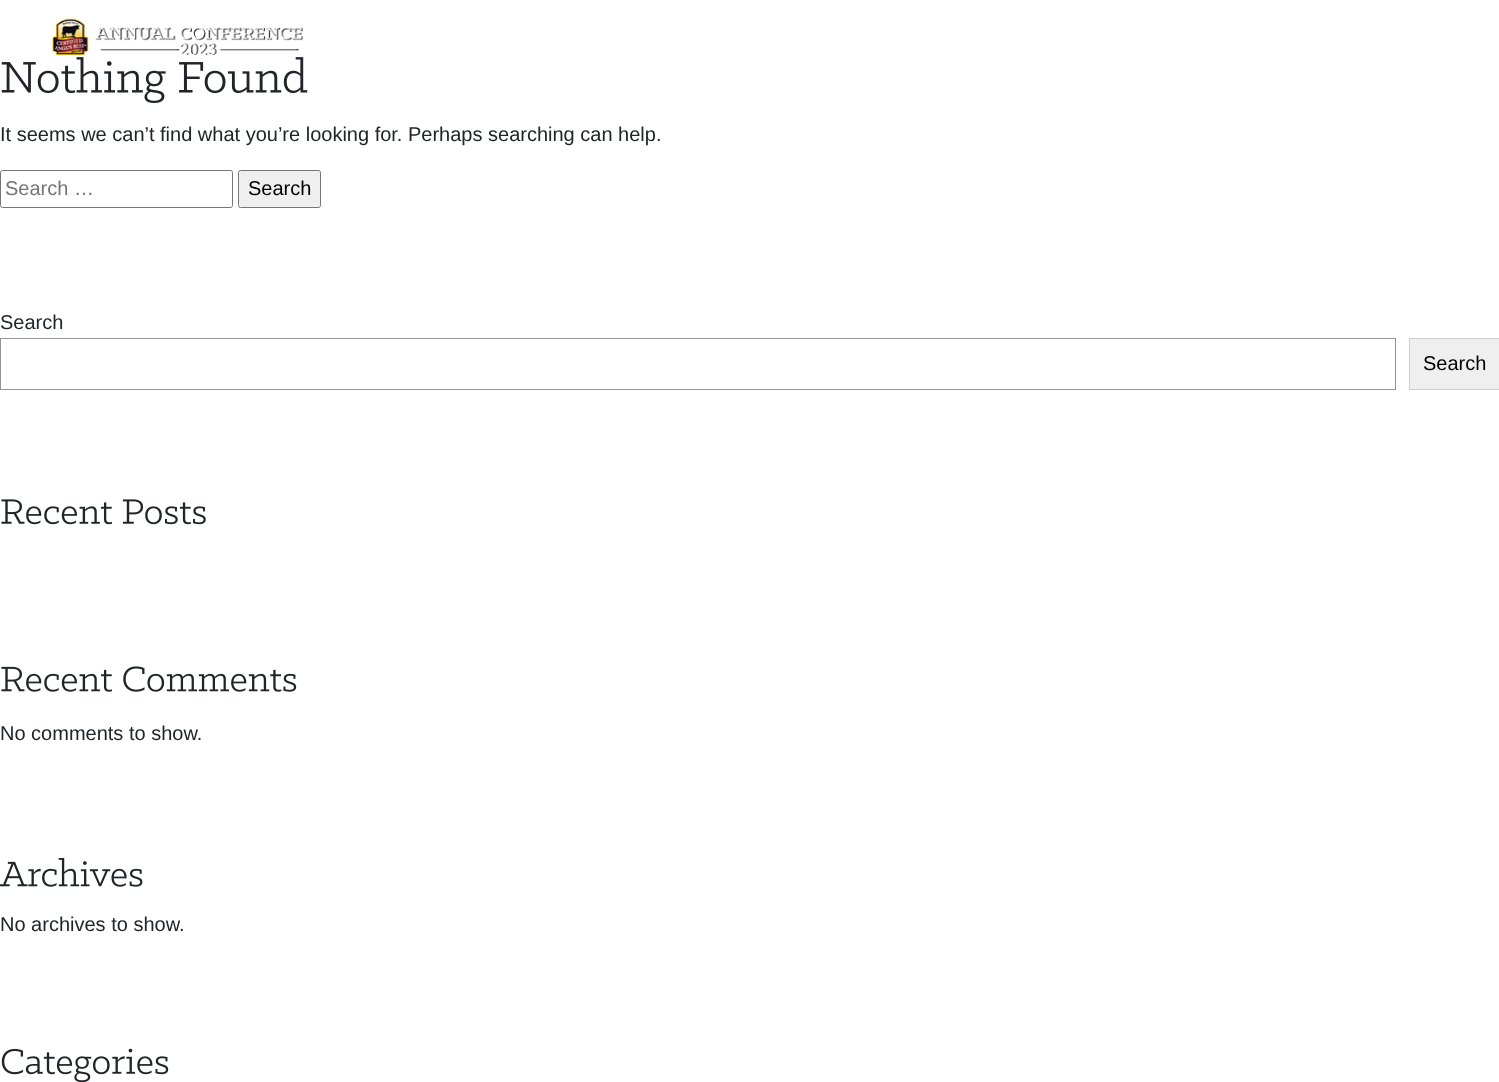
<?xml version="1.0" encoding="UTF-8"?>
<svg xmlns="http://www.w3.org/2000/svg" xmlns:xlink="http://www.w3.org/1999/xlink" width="1499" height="1082">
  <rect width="100%" height="100%" fill="#ffffff" />
  <image x="52" y="18" width="251" height="37" xlink:href="image1.png" />
  <image x="1" y="57" width="307" height="46" xlink:href="image2.png" />
  <rect x="0.5" y="170.5" width="232" height="37" rx="2" fill="none" stroke="#767676" />
  <rect x="238.5" y="170.5" width="82" height="37" rx="2" fill="#efefef" stroke="#767676" />
  <rect x="0.5" y="338.5" width="1395" height="51" fill="none" stroke="#949494" />
  <rect x="1409.5" y="338.5" width="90" height="51" fill="#efefef" stroke="#cccccc" />
  <image x="1" y="499" width="205" height="26" xlink:href="image3.png" />
  <image x="1" y="666" width="296" height="26" xlink:href="image4.png" />
  <image x="0" y="858" width="143" height="29" xlink:href="image5.png" />
  <image x="1" y="1048" width="168" height="34" xlink:href="image6.png" />
  <text x="0" y="141" style="font-family: Liberation Sans; font-size: 20px; fill: #212529">It seems we can’t find what you’re looking for. Perhaps searching can help.</text>
  <text x="5" y="195" style="font-family: Liberation Sans; font-size: 20px; fill: #757575">Search …</text>
  <text x="248" y="195" style="font-family: Liberation Sans; font-size: 20px; fill: #000000">Search</text>
  <text x="0" y="329" style="font-family: Liberation Sans; font-size: 20px; fill: #212529">Search</text>
  <text x="1423" y="370" style="font-family: Liberation Sans; font-size: 20px; fill: #000000">Search</text>
  <text x="0" y="740" style="font-family: Liberation Sans; font-size: 20px; fill: #212529">No comments to show.</text>
  <text x="0" y="931" style="font-family: Liberation Sans; font-size: 20px; fill: #212529">No archives to show.</text>
</svg>
